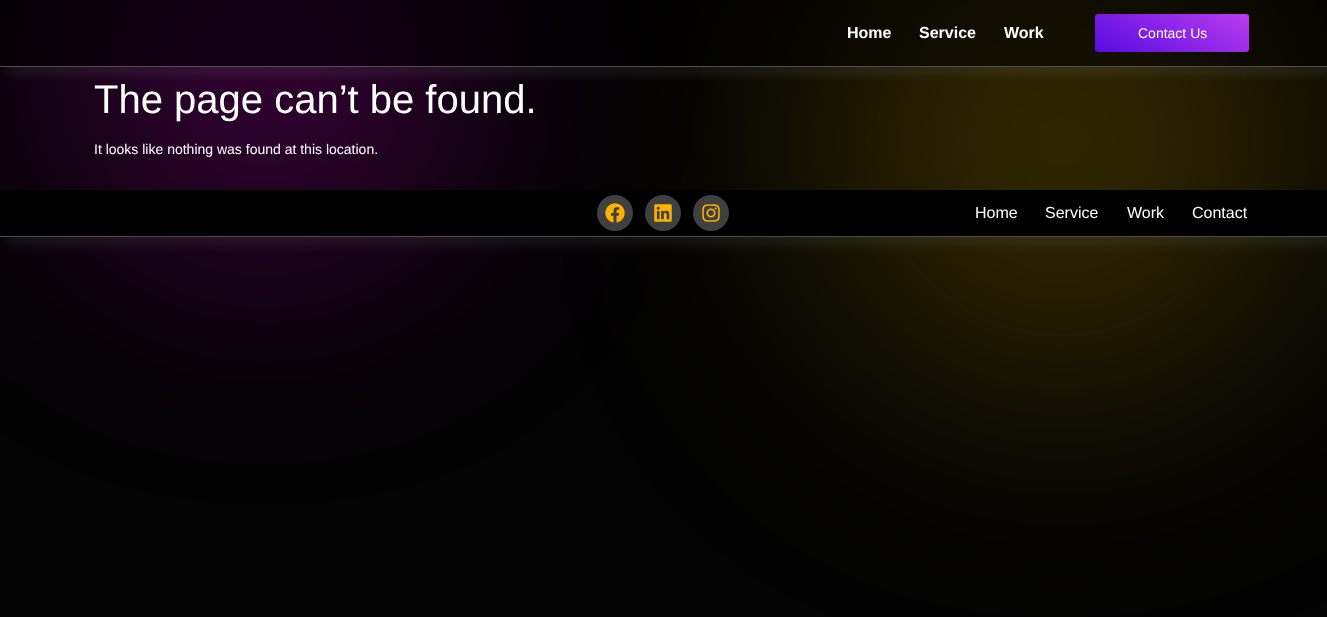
<?xml version="1.0" encoding="UTF-8"?>
<svg xmlns="http://www.w3.org/2000/svg" xmlns:xlink="http://www.w3.org/1999/xlink" width="1327" height="617">
  <defs>
    <clipPath id="clip1"><rect x="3" y="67" width="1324" height="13" /></clipPath>
    <linearGradient id="g1" gradientUnits="userSpaceOnUse" x1="1146" y1="80" x2="1198" y2="-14"><stop offset="0" stop-color="#570be2" /><stop offset="1" stop-color="#bb3cef" /></linearGradient>
  </defs>
  <rect width="100%" height="100%" fill="#030303" />
  <rect x="65" y="-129" width="400" height="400" rx="200" fill="#ff00ff" fill-opacity="0.22" filter="blur(120px)" />
  <rect x="812" y="-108" width="500" height="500" rx="250" fill="#574400" fill-opacity="0.57" filter="blur(120px)" />
  <g clip-path="url(#clip1)">
    <rect x="8" y="8" width="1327" height="67" fill="#b3b3b3" fill-opacity="0.1" filter="blur(6.5px)" />
  </g>
  <rect y="66" width="1327" height="1" fill="#4d4d4d" />
  <rect width="1327" height="66" fill="#000000" fill-opacity="0.54" />
  <rect x="1095" y="14" width="154" height="38" rx="3" fill="url(#g1)" />
  <rect x="8" y="198" width="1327" height="47" fill="#b3b3b3" fill-opacity="0.1" filter="blur(6.5px)" />
  <rect y="190" width="1327" height="46" fill="#000000" />
  <rect y="236" width="1327" height="1" fill="#4d4d4d" />
  <circle cx="615" cy="213" r="18" fill="#404040" />
  <image x="605" y="203" width="20" height="20" xlink:href="image1.png" />
  <circle cx="663" cy="213" r="18" fill="#404040" />
  <image x="654" y="204" width="18" height="18" xlink:href="image2.png" />
  <circle cx="711" cy="213" r="18" fill="#404040" />
  <image x="702" y="204" width="18" height="18" xlink:href="image3.png" />
  <text x="847" y="38" style="font-family: Liberation Sans; font-size: 16px; font-weight: bold; fill: #ffffff">Home</text>
  <text x="919" y="38" style="font-family: Liberation Sans; font-size: 16px; font-weight: bold; fill: #ffffff">Service</text>
  <text x="1004" y="38" style="font-family: Liberation Sans; font-size: 16px; font-weight: bold; fill: #ffffff">Work</text>
  <text x="1138" y="38" style="font-family: Liberation Sans; font-size: 14px; fill: #ffffff">Contact Us</text>
  <text x="94" y="113" style="font-family: Liberation Sans; font-size: 40px; fill: #ffffff">The page can’t be found.</text>
  <text x="94" y="154" style="font-family: Liberation Sans; font-size: 14px; fill: #ffffff">It looks like nothing was found at this location.</text>
  <text x="975" y="218" style="font-family: Liberation Sans; font-size: 16px; fill: #ffffff">Home</text>
  <text x="1045" y="218" style="font-family: Liberation Sans; font-size: 16px; fill: #ffffff">Service</text>
  <text x="1127" y="218" style="font-family: Liberation Sans; font-size: 16px; fill: #ffffff">Work</text>
  <text x="1192" y="218" style="font-family: Liberation Sans; font-size: 16px; fill: #ffffff">Contact</text>
</svg>
